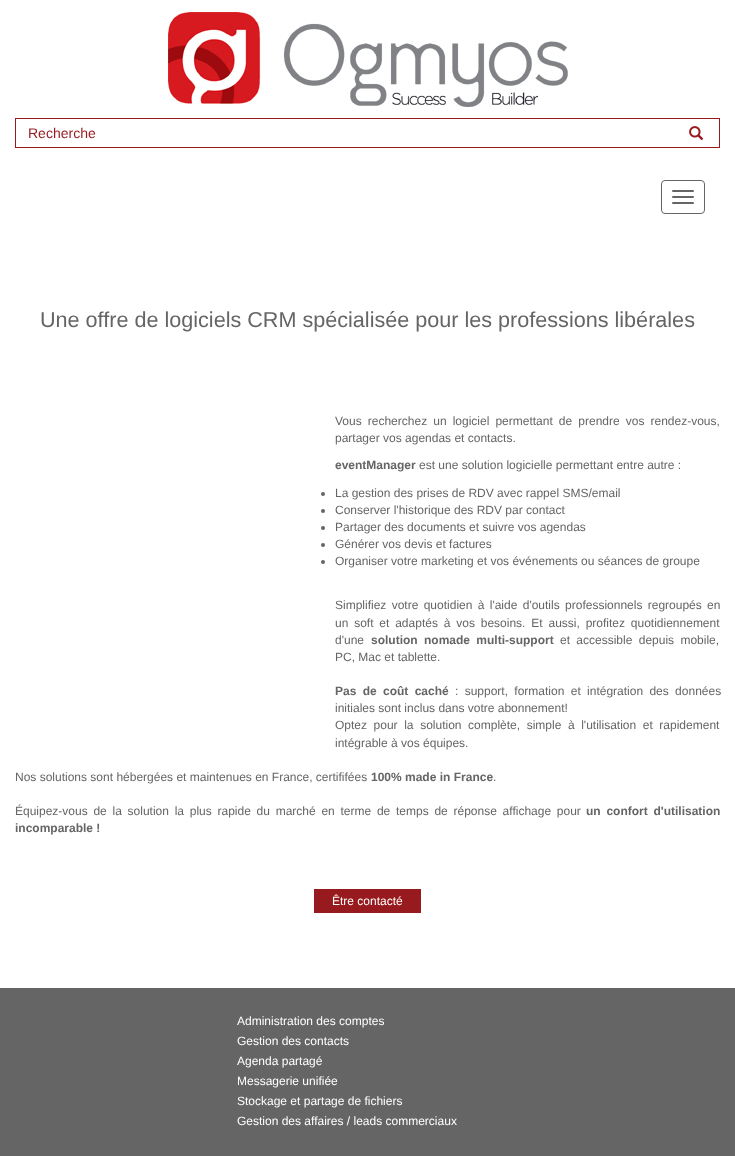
<?xml version="1.0" encoding="UTF-8"?>
<svg xmlns="http://www.w3.org/2000/svg" xmlns:xlink="http://www.w3.org/1999/xlink" width="735" height="1156">
  <rect width="100%" height="100%" fill="#ffffff" />
  <image x="168" y="12" width="400" height="95" xlink:href="image1.png" />
  <rect x="15" y="118" width="705" height="1" fill="#971b1e" />
  <rect x="719" y="118" width="1" height="30" fill="#971b1e" />
  <rect x="15" y="147" width="705" height="1" fill="#971b1e" />
  <image x="689" y="126" width="15" height="14" xlink:href="image2.png" />
  <rect x="15" y="118" width="1" height="30" fill="#971b1e" />
  <rect x="661.5" y="180.5" width="43" height="33" rx="3.5" fill="none" stroke="#656565" />
  <rect x="672" y="190" width="22" height="2" rx="1" fill="#656565" />
  <rect x="672" y="196" width="22" height="2" rx="1" fill="#656565" />
  <rect x="672" y="202" width="22" height="2" rx="1" fill="#656565" />
  <circle cx="323" cy="494" r="2" fill="#656565" />
  <circle cx="323" cy="511" r="2" fill="#656565" />
  <circle cx="323" cy="528" r="2" fill="#656565" />
  <circle cx="323" cy="545" r="2" fill="#656565" />
  <circle cx="323" cy="562" r="2" fill="#656565" />
  <rect x="314" y="889" width="107" height="24" fill="#971b1e" />
  <rect y="988" width="735" height="168" fill="#656565" />
  <text x="28" y="138" style="font-family: Liberation Sans; font-size: 14px; fill: #971b1e">Recherche</text>
  <text x="40" y="327" style="font-family: Liberation Sans; font-size: 21.6px; fill: #656565">Une offre de logiciels CRM spécialisée pour les professions libérales</text>
  <text x="335" y="425" word-spacing="2.75" style="font-family: Liberation Sans; font-size: 12px; fill: #656565">Vous recherchez un logiciel permettant de prendre vos rendez-vous,</text>
  <text x="335" y="442" style="font-family: Liberation Sans; font-size: 12px; fill: #656565">partager vos agendas et contacts.</text>
  <text x="335" y="469" style="font-family: Liberation Sans; font-size: 12px; font-weight: bold; fill: #656565">eventManager</text>
  <text x="419" y="469" style="font-family: Liberation Sans; font-size: 12px; fill: #656565">est une solution logicielle permettant entre autre :</text>
  <text x="335" y="497" style="font-family: Liberation Sans; font-size: 12px; fill: #656565">La gestion des prises de RDV avec rappel SMS/email</text>
  <text x="335" y="514" style="font-family: Liberation Sans; font-size: 12px; fill: #656565">Conserver l'historique des RDV par contact</text>
  <text x="335" y="531" style="font-family: Liberation Sans; font-size: 12px; fill: #656565">Partager des documents et suivre vos agendas</text>
  <text x="335" y="548" style="font-family: Liberation Sans; font-size: 12px; fill: #656565">Générer vos devis et factures</text>
  <text x="335" y="565" style="font-family: Liberation Sans; font-size: 12px; fill: #656565">Organiser votre marketing et vos événements ou séances de groupe</text>
  <text x="335" y="609" word-spacing="2" style="font-family: Liberation Sans; font-size: 12px; fill: #656565">Simplifiez votre quotidien à l'aide d'outils professionnels regroupés en</text>
  <text x="335" y="627" word-spacing="2.5" style="font-family: Liberation Sans; font-size: 12px; fill: #656565">un soft et adaptés à vos besoins. Et aussi, profitez quotidiennement</text>
  <text x="335" y="644" style="font-family: Liberation Sans; font-size: 12px; fill: #656565">d'une</text>
  <text x="371" y="644" word-spacing="3" style="font-family: Liberation Sans; font-size: 12px; font-weight: bold; fill: #656565">solution nomade multi-support</text>
  <text x="560" y="644" word-spacing="3" style="font-family: Liberation Sans; font-size: 12px; fill: #656565">et accessible depuis mobile,</text>
  <text x="335" y="661" style="font-family: Liberation Sans; font-size: 12px; fill: #656565">PC, Mac et tablette.</text>
  <text x="335" y="695" word-spacing="3" style="font-family: Liberation Sans; font-size: 12px; font-weight: bold; fill: #656565">Pas de coût caché</text>
  <text x="455" y="695" word-spacing="3" style="font-family: Liberation Sans; font-size: 12px; fill: #656565">: support, formation et intégration des données</text>
  <text x="335" y="712" style="font-family: Liberation Sans; font-size: 12px; fill: #656565">initiales sont inclus dans votre abonnement!</text>
  <text x="335" y="729" word-spacing="3.25" style="font-family: Liberation Sans; font-size: 12px; fill: #656565">Optez pour la solution complète, simple à l'utilisation et rapidement</text>
  <text x="335" y="747" style="font-family: Liberation Sans; font-size: 12px; fill: #656565">intégrable à vos équipes.</text>
  <text x="15" y="781" style="font-family: Liberation Sans; font-size: 12px; fill: #656565">Nos solutions sont hébergées et maintenues en France, certififées</text>
  <text x="371" y="781" style="font-family: Liberation Sans; font-size: 12px; font-weight: bold; fill: #656565">100% made in France</text>
  <text x="493" y="781" style="font-family: Liberation Sans; font-size: 12px; fill: #656565">.</text>
  <text x="15" y="815" word-spacing="2.4" style="font-family: Liberation Sans; font-size: 12px; fill: #656565">Équipez-vous de la solution la plus rapide du marché en terme de temps de réponse affichage pour</text>
  <text x="586" y="815" word-spacing="2.4" style="font-family: Liberation Sans; font-size: 12px; font-weight: bold; fill: #656565">un confort d'utilisation</text>
  <text x="15" y="832" style="font-family: Liberation Sans; font-size: 12px; font-weight: bold; fill: #656565">incomparable !</text>
  <text x="332" y="905" style="font-family: Liberation Sans; font-size: 12px; fill: #ffffff">Être contacté</text>
  <text x="237" y="1025" style="font-family: Liberation Sans; font-size: 12px; fill: #ffffff">Administration des comptes</text>
  <text x="237" y="1045" style="font-family: Liberation Sans; font-size: 12px; fill: #ffffff">Gestion des contacts</text>
  <text x="237" y="1065" style="font-family: Liberation Sans; font-size: 12px; fill: #ffffff">Agenda partagé</text>
  <text x="237" y="1085" style="font-family: Liberation Sans; font-size: 12px; fill: #ffffff">Messagerie unifiée</text>
  <text x="237" y="1105" style="font-family: Liberation Sans; font-size: 12px; fill: #ffffff">Stockage et partage de fichiers</text>
  <text x="237" y="1125" style="font-family: Liberation Sans; font-size: 12px; fill: #ffffff">Gestion des affaires / leads commerciaux</text>
</svg>
